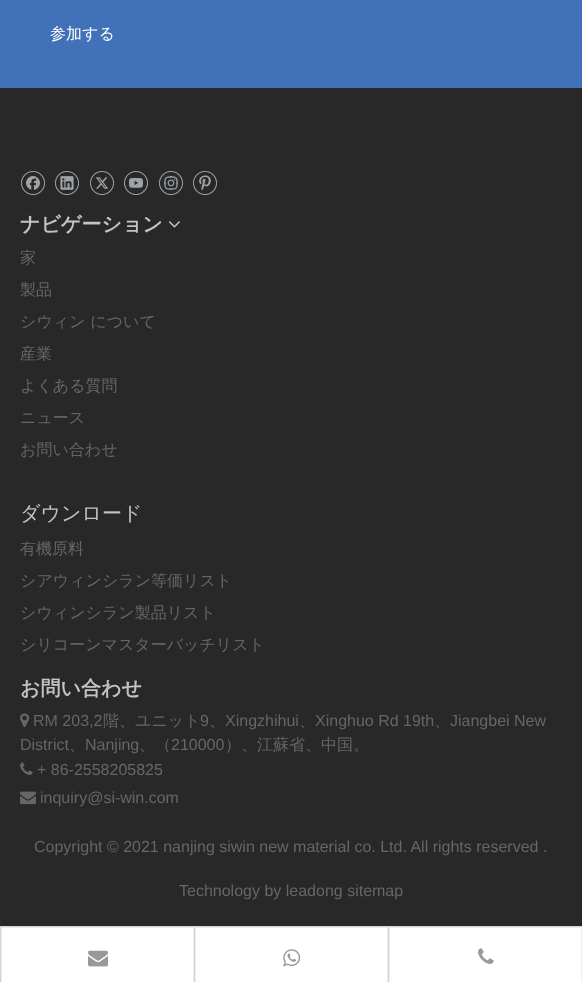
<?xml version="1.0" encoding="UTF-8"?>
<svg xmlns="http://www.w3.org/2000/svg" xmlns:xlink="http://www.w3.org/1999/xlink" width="582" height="982">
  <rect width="100%" height="100%" fill="#ffffff" />
  <rect width="582" height="88" fill="#4171b8" />
  <rect y="88" width="582" height="838" fill="#282828" />
  <image x="21" y="171" width="24" height="24" xlink:href="image1.png" />
  <image x="55" y="171" width="24" height="24" xlink:href="image2.png" />
  <image x="90" y="171" width="24" height="24" xlink:href="image3.png" />
  <image x="124" y="171" width="24" height="24" xlink:href="image4.png" />
  <image x="159" y="171" width="24" height="24" xlink:href="image5.png" />
  <image x="193" y="171" width="24" height="24" xlink:href="image6.png" />
  <image x="168" y="221" width="12" height="7" xlink:href="image7.png" />
  <image x="20" y="713" width="10" height="15" xlink:href="image8.png" />
  <image x="20" y="762" width="13" height="13" xlink:href="image9.png" />
  <image x="20" y="791" width="16" height="14" xlink:href="image10.png" />
  <rect y="926" width="582" height="1" fill="#d3d3d3" />
  <rect y="927" width="1" height="55" fill="#d3d3d3" />
  <rect x="1" y="927" width="193" height="1" fill="#eeeeee" />
  <rect x="193" y="927" width="1" height="55" fill="#eeeeee" />
  <rect x="1" y="927" width="1" height="55" fill="#eeeeee" />
  <image x="88" y="950" width="20" height="17" xlink:href="image11.png" />
  <rect x="194" y="927" width="1" height="55" fill="#d3d3d3" />
  <rect x="195" y="927" width="193" height="1" fill="#eeeeee" />
  <rect x="387" y="927" width="1" height="55" fill="#eeeeee" />
  <rect x="195" y="927" width="1" height="55" fill="#eeeeee" />
  <image x="283" y="949" width="18" height="18" xlink:href="image12.png" />
  <rect x="388" y="927" width="1" height="55" fill="#d3d3d3" />
  <rect x="389.5" y="927.5" width="192" height="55" fill="none" stroke="#eeeeee" />
  <image x="478" y="948" width="16" height="16" xlink:href="image13.png" />
  <text x="50" y="39" style="font-family: WenQuanYi Zen Hei; font-size: 16px; font-weight: 500; fill: #ffffff">参加する</text>
  <text x="20" y="231" style="font-family: WenQuanYi Zen Hei; font-size: 20px; font-weight: bold; fill: #c3c3c3">ナビゲーション</text>
  <text x="20" y="263" style="font-family: WenQuanYi Zen Hei; font-size: 16px; font-weight: 500; fill: #666666">家</text>
  <text x="20" y="295" style="font-family: WenQuanYi Zen Hei; font-size: 16px; font-weight: 500; fill: #666666">製品</text>
  <text x="20" y="327" style="font-family: WenQuanYi Zen Hei; font-size: 16px; font-weight: 500; fill: #666666">シウィン について</text>
  <text x="20" y="359" style="font-family: WenQuanYi Zen Hei; font-size: 16px; font-weight: 500; fill: #666666">産業</text>
  <text x="20" y="391" style="font-family: WenQuanYi Zen Hei; font-size: 16px; font-weight: 500; fill: #666666">よくある質問</text>
  <text x="20" y="423" style="font-family: WenQuanYi Zen Hei; font-size: 16px; font-weight: 500; fill: #666666">ニュース</text>
  <text x="20" y="455" style="font-family: WenQuanYi Zen Hei; font-size: 16px; font-weight: 500; fill: #666666">お問い合わせ</text>
  <text x="20" y="520" style="font-family: WenQuanYi Zen Hei; font-size: 20px; font-weight: 500; fill: #c3c3c3">ダウンロード</text>
  <text x="20" y="554" style="font-family: WenQuanYi Zen Hei; font-size: 16px; font-weight: 500; fill: #666666">有機原料</text>
  <text x="20" y="586" style="font-family: WenQuanYi Zen Hei; font-size: 16px; font-weight: 500; fill: #666666">シアウィンシラン等価リスト</text>
  <text x="20" y="618" style="font-family: WenQuanYi Zen Hei; font-size: 16px; font-weight: 500; fill: #666666">シウィンシラン製品リスト</text>
  <text x="20" y="650" style="font-family: WenQuanYi Zen Hei; font-size: 16px; font-weight: 500; fill: #666666">シリコーンマスターバッチリスト</text>
  <text x="20" y="695" style="font-family: WenQuanYi Zen Hei; font-size: 20px; font-weight: bold; fill: #c3c3c3">お問い合わせ</text>
  <text x="33" y="726" style="font-family: Liberation Sans; font-size: 16px; fill: #666666">RM 203,2</text>
  <text x="103" y="726" style="font-family: WenQuanYi Zen Hei; font-size: 16px; font-weight: 500; fill: #666666">階、ユニット</text>
  <text x="200" y="726" style="font-family: Liberation Sans; font-size: 16px; fill: #666666">9</text>
  <text x="209" y="726" style="font-family: WenQuanYi Zen Hei; font-size: 16px; font-weight: 500; fill: #666666">、</text>
  <text x="225" y="726" style="font-family: Liberation Sans; font-size: 16px; fill: #666666">Xingzhihui</text>
  <text x="299" y="726" style="font-family: WenQuanYi Zen Hei; font-size: 16px; font-weight: 500; fill: #666666">、</text>
  <text x="315" y="726" style="font-family: Liberation Sans; font-size: 16px; fill: #666666">Xinghuo Rd 19th</text>
  <text x="434" y="726" style="font-family: WenQuanYi Zen Hei; font-size: 16px; font-weight: 500; fill: #666666">、</text>
  <text x="450" y="726" style="font-family: Liberation Sans; font-size: 16px; fill: #666666">Jiangbei New</text>
  <text x="20" y="750" style="font-family: Liberation Sans; font-size: 16px; fill: #666666">District</text>
  <text x="69" y="750" style="font-family: WenQuanYi Zen Hei; font-size: 16px; font-weight: 500; fill: #666666">、</text>
  <text x="85" y="750" style="font-family: Liberation Sans; font-size: 16px; fill: #666666">Nanjing</text>
  <text x="139" y="750" style="font-family: WenQuanYi Zen Hei; font-size: 16px; font-weight: 500; fill: #666666">、（</text>
  <text x="171" y="750" style="font-family: Liberation Sans; font-size: 16px; fill: #666666">210000</text>
  <text x="225" y="750" style="font-family: WenQuanYi Zen Hei; font-size: 16px; font-weight: 500; fill: #666666">）、江蘇省、中国。</text>
  <text x="37" y="775" style="font-family: Liberation Sans; font-size: 16px; fill: #666666">+ 86-2558205825</text>
  <text x="40" y="803" style="font-family: Liberation Sans; font-size: 16px; fill: #666666">inquiry@si-win.com</text>
  <text x="34" y="852" style="font-family: Liberation Sans; font-size: 16px; fill: #666666">Copyright © 2021 nanjing siwin new material co. Ltd. All rights reserved .</text>
  <text x="179" y="896" style="font-family: Liberation Sans; font-size: 16px; fill: #666666">Technology by leadong sitemap</text>
</svg>
